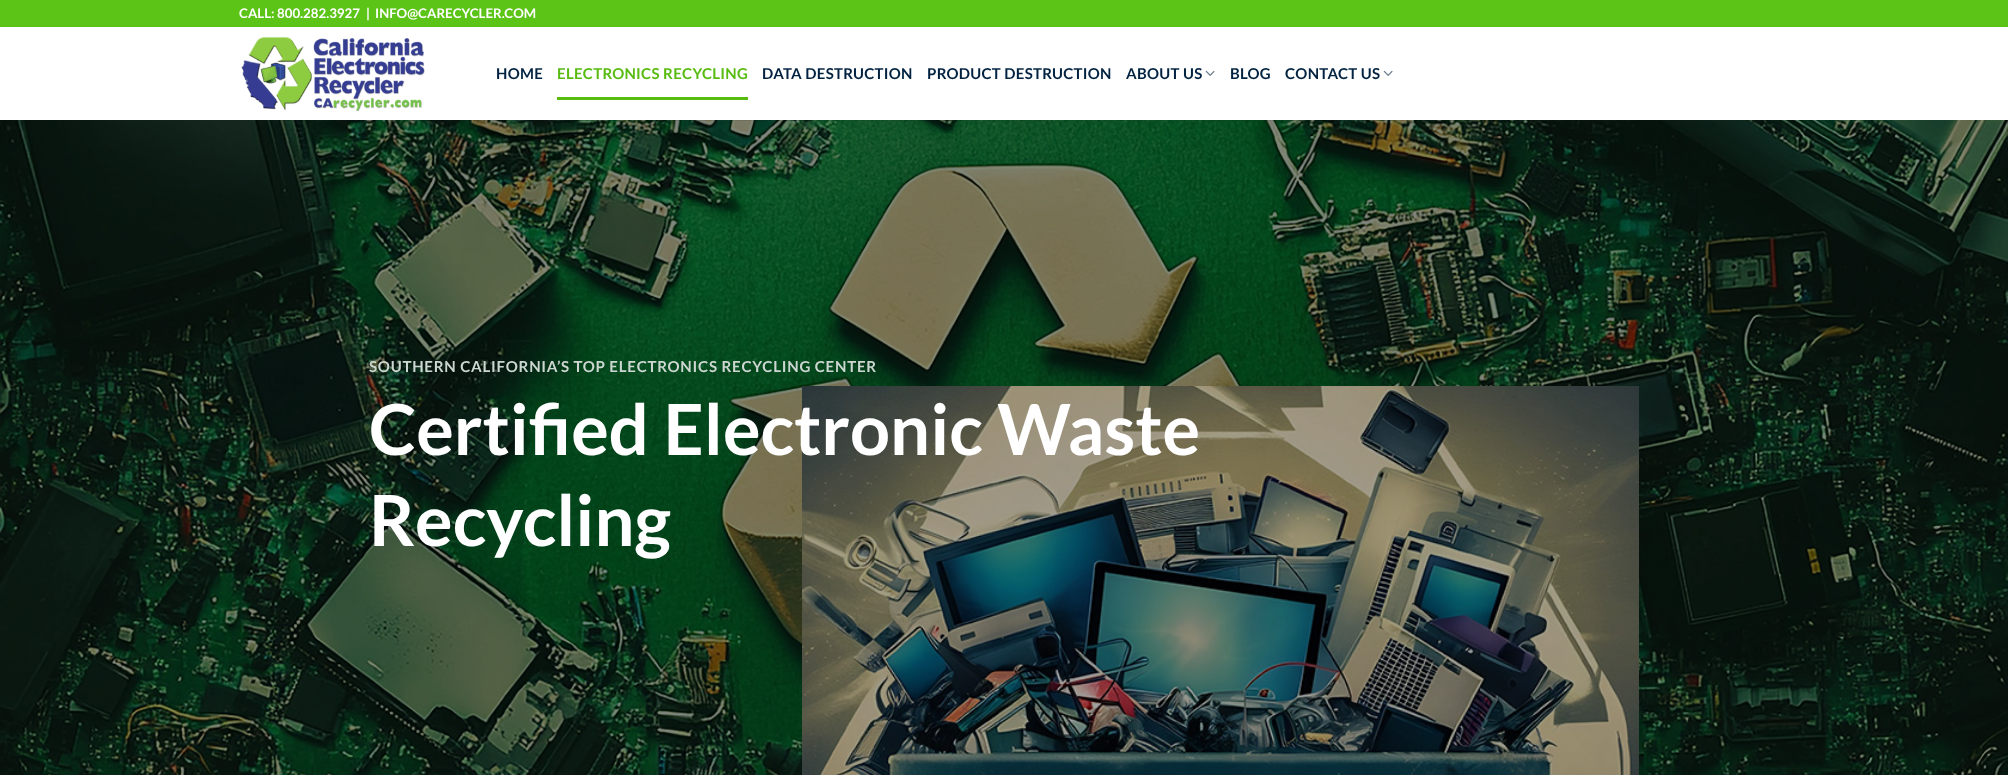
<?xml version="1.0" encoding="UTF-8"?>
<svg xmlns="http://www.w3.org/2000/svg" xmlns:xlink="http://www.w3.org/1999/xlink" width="2008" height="775">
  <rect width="100%" height="100%" fill="#ffffff" />
  <rect width="2008" height="27" fill="#5cc417" />
  <image x="241" y="36" width="184" height="76" xlink:href="image1.png" />
  <rect x="557" y="97" width="191" height="3" fill="#57bb10" />
  <image x="1205" y="70" width="10" height="6" xlink:href="image2.png" />
  <image x="1383" y="70" width="10" height="6" xlink:href="image2.png" />
  <image x="0" y="120" width="2008" height="655" xlink:href="image3.png" />
  <rect x="256" y="120" width="1513" height="1" fill="#212121" fill-opacity="0.1" />
  <image x="802" y="386" width="837" height="389" xlink:href="image4.png" />
  <text x="239" y="18" style="font-family: Lato; font-size: 13.25px; font-weight: bold; fill: #ffffff">CALL: 800.282.3927</text>
  <text x="366" y="18" style="font-family: Lato; font-size: 13.25px; font-weight: bold; fill: #ffffff">|</text>
  <text x="375" y="18" style="font-family: Lato; font-size: 13.25px; font-weight: bold; fill: #ffffff">INFO@CARECYCLER.COM</text>
  <text x="496" y="79" style="font-family: Lato; font-size: 15px; font-weight: bold; letter-spacing: 0.3px; fill: #012240">HOME</text>
  <text x="557" y="79" style="font-family: Lato; font-size: 15px; font-weight: bold; letter-spacing: 0.3px; fill: #57bb10">ELECTRONICS RECYCLING</text>
  <text x="762" y="79" style="font-family: Lato; font-size: 15px; font-weight: bold; letter-spacing: 0.3px; fill: #012240">DATA DESTRUCTION</text>
  <text x="927" y="79" style="font-family: Lato; font-size: 15px; font-weight: bold; letter-spacing: 0.3px; fill: #012240">PRODUCT DESTRUCTION</text>
  <text x="1126" y="79" style="font-family: Lato; font-size: 15px; font-weight: bold; letter-spacing: 0.3px; fill: #012240">ABOUT US</text>
  <text x="1230" y="79" style="font-family: Lato; font-size: 15px; font-weight: bold; letter-spacing: 0.3px; fill: #012240">BLOG</text>
  <text x="1285" y="79" style="font-family: Lato; font-size: 15px; font-weight: bold; letter-spacing: 0.3px; fill: #012240">CONTACT US</text>
  <text x="369" y="372" style="font-family: Lato; font-size: 15.1px; font-weight: bold; letter-spacing: 0.75px; fill: #cdd7d1">SOUTHERN CALIFORNIA’S TOP ELECTRONICS RECYCLING CENTER</text>
  <text x="369" y="455" word-spacing="1" style="font-family: Lato; font-size: 70.4px; font-weight: bold; fill: #ffffff">Certified Electronic Waste</text>
  <text x="369" y="546" style="font-family: Lato; font-size: 70.4px; font-weight: bold; fill: #ffffff">Recycling</text>
</svg>
